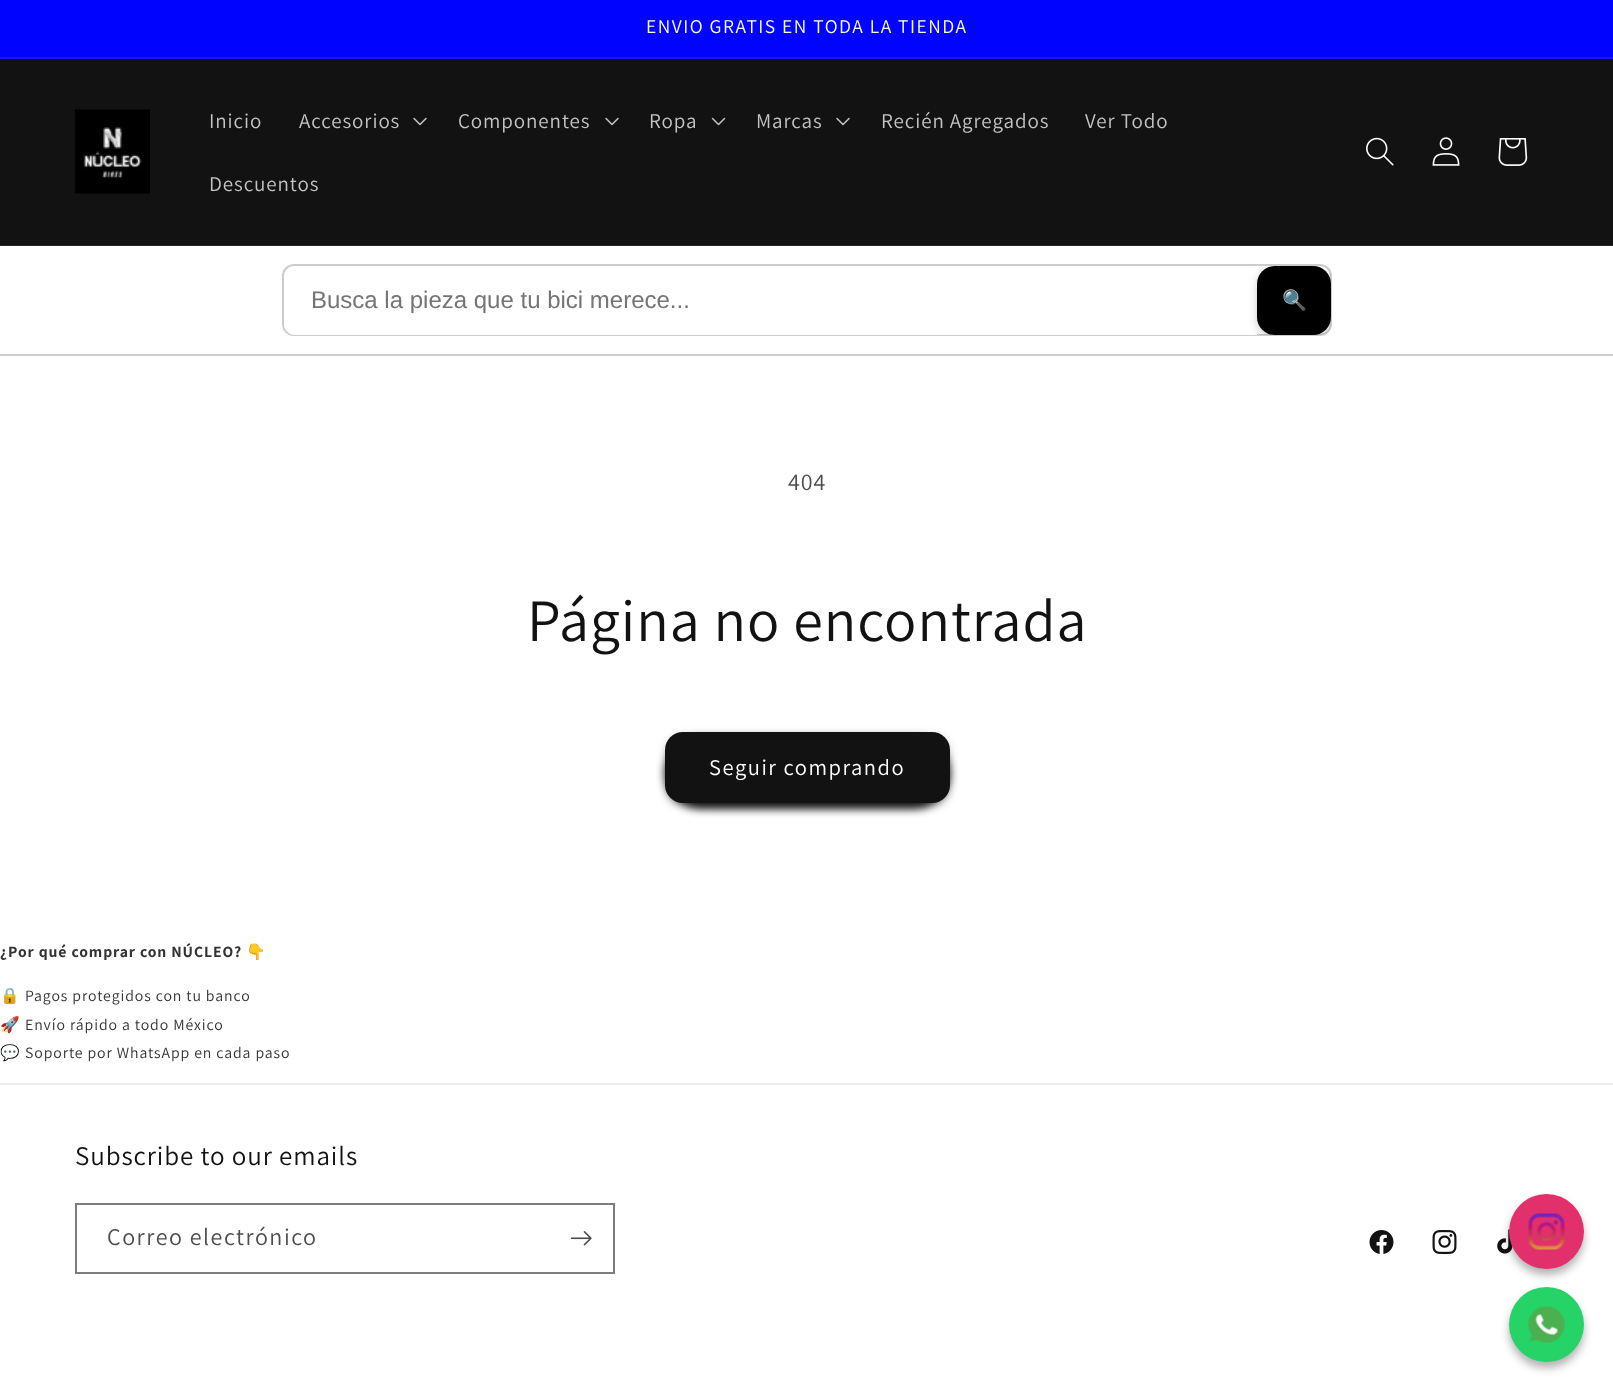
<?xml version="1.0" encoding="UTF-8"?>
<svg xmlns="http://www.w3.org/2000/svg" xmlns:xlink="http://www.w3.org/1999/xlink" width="1613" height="1392">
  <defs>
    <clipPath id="clip1"><rect x="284" y="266" width="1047" height="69" rx="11" /></clipPath>
  </defs>
  <rect width="100%" height="100%" fill="#ffffff" />
  <rect width="1613" height="57" fill="#0004ff" />
  <rect y="57" width="1613" height="2" fill="#1418ff" />
  <rect y="59" width="1613" height="186" fill="#121212" />
  <rect y="245" width="1613" height="1" fill="#252525" />
  <image x="75" y="109" width="75" height="85" xlink:href="image1.png" />
  <image x="413" y="117" width="14" height="9" xlink:href="image2.png" />
  <image x="605" y="117" width="14" height="9" xlink:href="image2.png" />
  <image x="711" y="117" width="15" height="9" xlink:href="image3.png" />
  <image x="836" y="117" width="14" height="9" xlink:href="image2.png" />
  <image x="1366" y="137" width="28" height="29" xlink:href="image4.png" />
  <image x="1432" y="137" width="28" height="29" xlink:href="image5.png" />
  <image x="1498" y="138" width="30" height="28" xlink:href="image6.png" />
  <rect y="354" width="1613" height="2" fill="#cccccc" />
  <rect x="283" y="265" width="1048" height="70" rx="11" fill="none" stroke="#cccccc" stroke-width="2" />
  <path d="M 295 266 h 962 v 69 h -962 c -6 0 -11 -5 -11 -11 v -47 c 0 -6 5 -11 11 -11 z" fill="#ffffff" />
  <g clip-path="url(#clip1)">
    <rect x="1257" y="269" width="74" height="69" rx="18" fill="#000000" fill-opacity="0.2" filter="blur(4.5px)" />
  </g>
  <rect x="1257" y="266" width="74" height="69" rx="18" fill="#000000" />
  <rect x="665" y="735" width="285" height="71" rx="18" fill="#000000" fill-opacity="0.2" filter="blur(4.5px)" />
  <rect x="665" y="738" width="285" height="71" rx="35.5" fill="#121212" filter="blur(4px)" />
  <rect x="665" y="732" width="285" height="71" rx="18" fill="#121212" />
  <rect y="1083" width="1613" height="2" fill="#ececec" />
  <rect x="76" y="1204" width="538" height="69" fill="none" stroke="#7d7d7d" stroke-width="2" />
  <image x="570" y="1231" width="22" height="15" xlink:href="image7.png" />
  <image x="1369" y="1230" width="25" height="24" xlink:href="image8.png" />
  <image x="1432" y="1230" width="25" height="24" xlink:href="image9.png" />
  <image x="1497" y="1229" width="16" height="25" xlink:href="image10.png" />
  <rect x="1509" y="1200" width="75" height="75" rx="37.5" fill="#000000" fill-opacity="0.3" filter="blur(4.5px)" />
  <circle cx="1546.5" cy="1231.5" r="37.5" fill="#e1306c" />
  <image x="1528" y="1213" width="37" height="37" xlink:href="image11.png" />
  <rect x="1509" y="1293" width="75" height="75" rx="37.5" fill="#000000" fill-opacity="0.3" filter="blur(4.5px)" />
  <circle cx="1546.5" cy="1324.5" r="37.5" fill="#25d366" />
  <image x="1528" y="1306" width="37" height="37" xlink:href="image12.png" />
  <text x="646" y="33" style="font-family: Assistant; font-size: 19.5px; letter-spacing: 1.5px; fill: #ffffff">ENVIO GRATIS EN TODA LA TIENDA</text>
  <text x="209" y="128" style="font-family: Assistant; font-size: 21px; letter-spacing: 0.9px; fill: #c4c4c4">Inicio</text>
  <text x="299" y="128" style="font-family: Assistant; font-size: 21px; letter-spacing: 0.9px; fill: #c4c4c4">Accesorios</text>
  <text x="458" y="128" style="font-family: Assistant; font-size: 21px; letter-spacing: 0.9px; fill: #c4c4c4">Componentes</text>
  <text x="649" y="128" style="font-family: Assistant; font-size: 21px; letter-spacing: 0.9px; fill: #c4c4c4">Ropa</text>
  <text x="756" y="128" style="font-family: Assistant; font-size: 21px; letter-spacing: 0.9px; fill: #c4c4c4">Marcas</text>
  <text x="881" y="128" style="font-family: Assistant; font-size: 21px; letter-spacing: 0.9px; fill: #c4c4c4">Recién Agregados</text>
  <text x="1085" y="128" style="font-family: Assistant; font-size: 21px; letter-spacing: 0.9px; fill: #c4c4c4">Ver Todo</text>
  <text x="209" y="191" style="font-family: Assistant; font-size: 21px; letter-spacing: 0.9px; fill: #c4c4c4">Descuentos</text>
  <text x="311" y="308" style="font-family: Liberation Sans; font-size: 24px; fill: #757575">Busca la pieza que tu bici merece...</text>
  <text x="1282" y="307" style="font-family: Noto Color Emoji; font-size: 20px; fill: #ffffff">🔍</text>
  <text x="788" y="490" style="font-family: Assistant; font-size: 24px; letter-spacing: 0.9px; fill: #4d4d4d">404</text>
  <text x="527" y="641" style="font-family: Assistant; font-size: 60px; letter-spacing: 0.9px; fill: #121212">Página no encontrada</text>
  <text x="709" y="775" style="font-family: Assistant; font-size: 22.5px; letter-spacing: 1.5px; fill: #ffffff">Seguir comprando</text>
  <text x="0" y="957" style="font-family: Assistant; font-size: 15.75px; font-weight: bold; letter-spacing: 0.9px; fill: #333333">¿Por qué comprar con NÚCLEO?</text>
  <text x="246" y="957" style="font-family: Noto Color Emoji; font-size: 15.75px; font-weight: bold; letter-spacing: 0.9px; fill: #333333">👇</text>
  <text x="0" y="1001" style="font-family: Noto Color Emoji; font-size: 15.75px; letter-spacing: 0.9px; fill: #333333">🔒</text>
  <text x="25" y="1001" style="font-family: Assistant; font-size: 15.75px; letter-spacing: 0.9px; fill: #333333">Pagos protegidos con tu banco</text>
  <text x="0" y="1030" style="font-family: Noto Color Emoji; font-size: 15.75px; letter-spacing: 0.9px; fill: #333333">🚀</text>
  <text x="25" y="1030" style="font-family: Assistant; font-size: 15.75px; letter-spacing: 0.9px; fill: #333333">Envío rápido a todo México</text>
  <text x="0" y="1058" style="font-family: Noto Color Emoji; font-size: 15.75px; letter-spacing: 0.9px; fill: #333333">💬</text>
  <text x="25" y="1058" style="font-family: Assistant; font-size: 15.75px; letter-spacing: 0.9px; fill: #333333">Soporte por WhatsApp en cada paso</text>
  <text x="75" y="1165" style="font-family: Assistant; font-size: 27px; letter-spacing: 0.9px; fill: #121212">Subscribe to our emails</text>
  <text x="107" y="1245" style="font-family: Assistant; font-size: 24px; letter-spacing: 1.5px; fill: #4d4d4d">Correo electrónico</text>
</svg>
